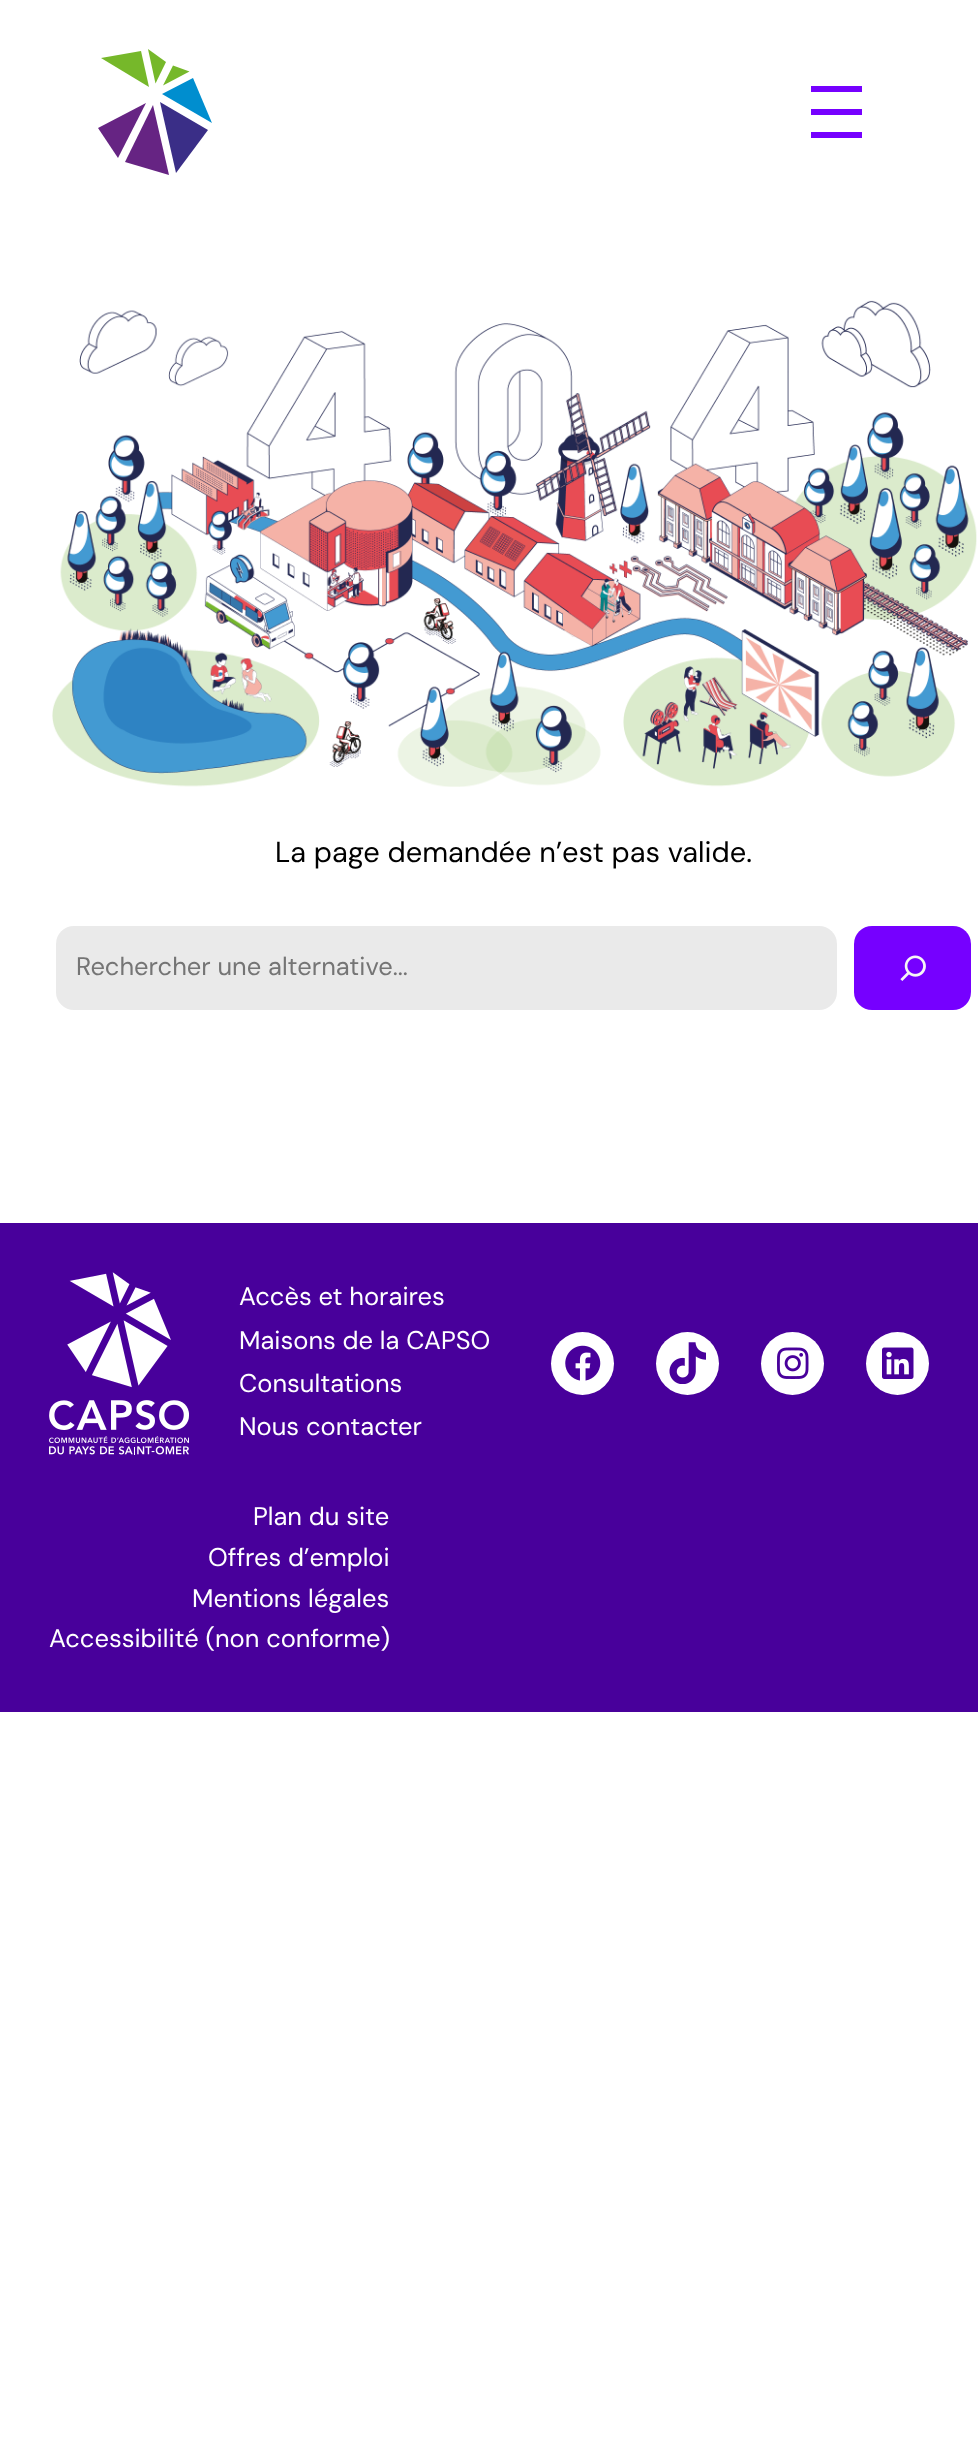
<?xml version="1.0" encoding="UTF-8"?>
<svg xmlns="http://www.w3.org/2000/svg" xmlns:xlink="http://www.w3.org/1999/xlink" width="978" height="2453">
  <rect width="100%" height="100%" fill="#ffffff" />
  <path d="M 148 49 l 18 13 l -10.5 21.5 z" fill="#76b82a" />
  <path d="M 101 58 l 40 -7 l 8 36 z" fill="#76b82a" />
  <path d="M 173 65.5 l -10 20 l 26.5 -14 z" fill="#76b82a" />
  <path d="M 193 78 l -31 16 l 50 29 z" fill="#008ecf" />
  <path d="M 208 130 l -48 -28 l 16 71 z" fill="#3a2e87" />
  <path d="M 169 175 l -16 -70 l -28 57 z" fill="#662483" />
  <path d="M 118 158 l 28 -55 l -48 25 z" fill="#662483" />
  <path d="M 811 86 v 6 h 51 v -6 z m 0 29 h 51 v -6 h -51 z m 0 23 h 51 v -6 h -51 z" fill="#7600ff" />
  <image x="52" y="300" width="925" height="487" xlink:href="image1.png" />
  <rect x="56" y="926" width="781" height="84" rx="18" fill="#eaeaea" />
  <rect x="854" y="926" width="117" height="84" rx="18" fill="#7600ff" />
  <image x="900" y="955" width="26" height="26" xlink:href="image2.png" />
  <rect y="1223" width="978" height="489" fill="#48009b" />
  <image x="49" y="1272" width="140" height="183" xlink:href="image3.png" />
  <circle cx="582.5" cy="1363.5" r="31.5" fill="#ffffff" />
  <image x="565" y="1345" width="36" height="36" xlink:href="image4.png" />
  <circle cx="687.5" cy="1363.5" r="31.5" fill="#ffffff" />
  <image x="669" y="1342" width="37" height="42" xlink:href="image5.png" />
  <circle cx="792.5" cy="1363.5" r="31.5" fill="#ffffff" />
  <image x="777" y="1347" width="32" height="32" xlink:href="image6.png" />
  <circle cx="897.5" cy="1363.5" r="31.5" fill="#ffffff" />
  <image x="882" y="1347" width="32" height="32" xlink:href="image7.png" />
  <text x="275" y="862" style="font-family: DM Sans; font-size: 29px; fill: #000000">La page demandée n’est pas valide.</text>
  <text x="76" y="975" style="font-family: DM Sans; font-size: 25.5px; fill: #757575">Rechercher une alternative...</text>
  <text x="239" y="1305" style="font-family: DM Sans; font-size: 25.5px; fill: #ffffff">Accès et horaires</text>
  <text x="239" y="1349" style="font-family: DM Sans; font-size: 25.5px; fill: #ffffff">Maisons de la CAPSO</text>
  <text x="239" y="1392" style="font-family: DM Sans; font-size: 25.5px; fill: #ffffff">Consultations</text>
  <text x="239" y="1435" style="font-family: DM Sans; font-size: 25.5px; fill: #ffffff">Nous contacter</text>
  <text x="253" y="1525" style="font-family: DM Sans; font-size: 25.5px; fill: #ffffff">Plan du site</text>
  <text x="208" y="1566" style="font-family: DM Sans; font-size: 25.5px; fill: #ffffff">Offres d’emploi</text>
  <text x="192" y="1607" style="font-family: DM Sans; font-size: 25.5px; fill: #ffffff">Mentions légales</text>
  <text x="49" y="1647" style="font-family: DM Sans; font-size: 25.5px; fill: #ffffff">Accessibilité (non conforme)</text>
</svg>
